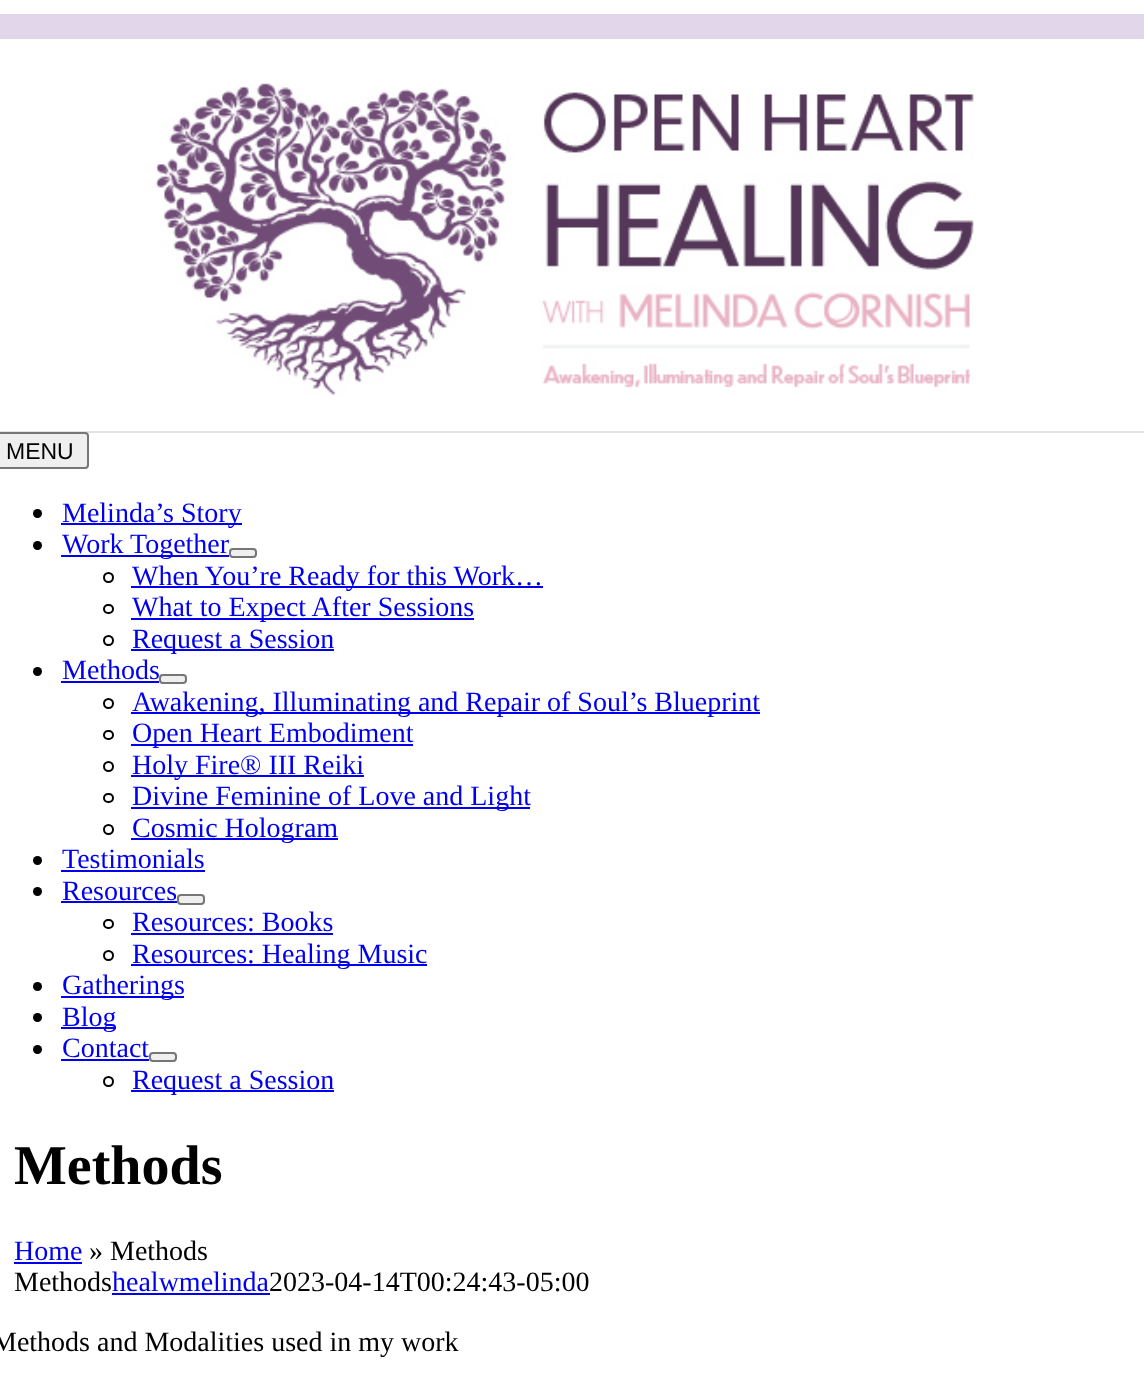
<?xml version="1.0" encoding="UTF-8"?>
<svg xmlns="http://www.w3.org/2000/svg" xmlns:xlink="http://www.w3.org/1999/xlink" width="1144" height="1384">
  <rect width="100%" height="100%" fill="#ffffff" />
  <rect y="14" width="1144" height="25" fill="#e2d7ea" />
  <image x="155" y="83" width="819" height="313" xlink:href="image1.png" />
  <rect y="431" width="1144" height="2" fill="#e2e2e2" />
  <rect x="-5" y="433" width="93" height="35" rx="3" fill="#efefef" stroke="#767676" stroke-width="2" />
  <circle cx="37.5" cy="513.5" r="4.5" fill="#000000" />
  <rect x="61" y="523" width="181" height="2" fill="#0000ee" />
  <circle cx="37.5" cy="545.5" r="4.5" fill="#000000" />
  <rect x="61" y="555" width="168" height="2" fill="#0000ee" />
  <rect x="230" y="549" width="26" height="8" rx="3" fill="#efefef" stroke="#767676" stroke-width="2" />
  <circle cx="108.5" cy="577.5" r="4.5" fill="none" stroke="#000000" stroke-width="2" />
  <rect x="131" y="586" width="412" height="2" fill="#0000ee" />
  <rect x="104" y="605" width="9" height="8" rx="4" fill="none" stroke="#000000" stroke-width="2" />
  <rect x="131" y="618" width="343" height="2" fill="#0000ee" />
  <circle cx="108.5" cy="640.5" r="4.5" fill="none" stroke="#000000" stroke-width="2" />
  <rect x="131" y="649" width="203" height="2" fill="#0000ee" />
  <circle cx="37.5" cy="671.5" r="4.5" fill="#000000" />
  <rect x="61" y="681" width="98" height="2" fill="#0000ee" />
  <rect x="160" y="675" width="26" height="8" rx="3" fill="#efefef" stroke="#767676" stroke-width="2" />
  <circle cx="108.5" cy="703.5" r="4.5" fill="none" stroke="#000000" stroke-width="2" />
  <rect x="131" y="712" width="629" height="2" fill="#0000ee" />
  <rect x="104" y="731" width="9" height="8" rx="4" fill="none" stroke="#000000" stroke-width="2" />
  <rect x="131" y="744" width="282" height="2" fill="#0000ee" />
  <circle cx="108.5" cy="766.5" r="4.5" fill="none" stroke="#000000" stroke-width="2" />
  <rect x="131" y="775" width="233" height="2" fill="#0000ee" />
  <rect x="104" y="794" width="9" height="8" rx="4" fill="none" stroke="#000000" stroke-width="2" />
  <rect x="131" y="807" width="399" height="2" fill="#0000ee" />
  <circle cx="108.5" cy="829.5" r="4.5" fill="none" stroke="#000000" stroke-width="2" />
  <rect x="131" y="838" width="207" height="2" fill="#0000ee" />
  <circle cx="37.5" cy="860.5" r="4.5" fill="#000000" />
  <rect x="61" y="870" width="144" height="2" fill="#0000ee" />
  <circle cx="37.5" cy="891.5" r="4.5" fill="#000000" />
  <rect x="61" y="901" width="116" height="2" fill="#0000ee" />
  <rect x="178" y="895" width="26" height="9" rx="3" fill="#efefef" stroke="#767676" stroke-width="2" />
  <rect x="104" y="920" width="9" height="8" rx="4" fill="none" stroke="#000000" stroke-width="2" />
  <rect x="131" y="933" width="202" height="2" fill="#0000ee" />
  <circle cx="108.5" cy="955.5" r="4.5" fill="none" stroke="#000000" stroke-width="2" />
  <rect x="131" y="964" width="296" height="2" fill="#0000ee" />
  <circle cx="37.5" cy="986.5" r="4.5" fill="#000000" />
  <rect x="61" y="996" width="123" height="2" fill="#0000ee" />
  <circle cx="37.5" cy="1017.5" r="4.5" fill="#000000" />
  <rect x="61" y="1027" width="55" height="2" fill="#0000ee" />
  <circle cx="37.5" cy="1049.5" r="4.5" fill="#000000" />
  <rect x="61" y="1059" width="88" height="2" fill="#0000ee" />
  <rect x="150" y="1053" width="26" height="8" rx="3" fill="#efefef" stroke="#767676" stroke-width="2" />
  <circle cx="108.5" cy="1081.5" r="4.5" fill="none" stroke="#000000" stroke-width="2" />
  <rect x="131" y="1090" width="203" height="2" fill="#0000ee" />
  <rect x="14" y="1262" width="68" height="2" fill="#0000ee" />
  <rect x="112" y="1293" width="158" height="2" fill="#0000ee" />
  <text x="6" y="459" style="font-family: Liberation Sans; font-size: 23px; fill: #000000">MENU</text>
  <text x="62" y="522" style="font-family: Liberation Serif; font-size: 28px; fill: #0000ee">Melinda’s Story</text>
  <text x="62" y="553" style="font-family: Liberation Serif; font-size: 28px; fill: #0000ee">Work Together</text>
  <text x="132" y="585" style="font-family: Liberation Serif; font-size: 28px; fill: #0000ee">When You’re Ready for this Work…</text>
  <text x="132" y="616" style="font-family: Liberation Serif; font-size: 28px; fill: #0000ee">What to Expect After Sessions</text>
  <text x="132" y="648" style="font-family: Liberation Serif; font-size: 28px; fill: #0000ee">Request a Session</text>
  <text x="62" y="679" style="font-family: Liberation Serif; font-size: 28px; fill: #0000ee">Methods</text>
  <text x="132" y="711" style="font-family: Liberation Serif; font-size: 28px; fill: #0000ee">Awakening, Illuminating and Repair of Soul’s Blueprint</text>
  <text x="132" y="742" style="font-family: Liberation Serif; font-size: 28px; fill: #0000ee">Open Heart Embodiment</text>
  <text x="132" y="774" style="font-family: Liberation Serif; font-size: 28px; fill: #0000ee">Holy Fire® III Reiki</text>
  <text x="132" y="805" style="font-family: Liberation Serif; font-size: 28px; fill: #0000ee">Divine Feminine of Love and Light</text>
  <text x="132" y="837" style="font-family: Liberation Serif; font-size: 28px; fill: #0000ee">Cosmic Hologram</text>
  <text x="62" y="868" style="font-family: Liberation Serif; font-size: 28px; fill: #0000ee">Testimonials</text>
  <text x="62" y="900" style="font-family: Liberation Serif; font-size: 28px; fill: #0000ee">Resources</text>
  <text x="132" y="931" style="font-family: Liberation Serif; font-size: 28px; fill: #0000ee">Resources: Books</text>
  <text x="132" y="963" style="font-family: Liberation Serif; font-size: 28px; fill: #0000ee">Resources: Healing Music</text>
  <text x="62" y="994" style="font-family: Liberation Serif; font-size: 28px; fill: #0000ee">Gatherings</text>
  <text x="62" y="1026" style="font-family: Liberation Serif; font-size: 28px; fill: #0000ee">Blog</text>
  <text x="62" y="1057" style="font-family: Liberation Serif; font-size: 28px; fill: #0000ee">Contact</text>
  <text x="132" y="1089" style="font-family: Liberation Serif; font-size: 28px; fill: #0000ee">Request a Session</text>
  <text x="14" y="1184" style="font-family: Liberation Serif; font-size: 56px; font-weight: bold; fill: #000000">Methods</text>
  <text x="14" y="1260" style="font-family: Liberation Serif; font-size: 28px; fill: #0000ee">Home</text>
  <text x="89" y="1260" style="font-family: Liberation Serif; font-size: 28px; fill: #000000">» Methods</text>
  <text x="14" y="1291" style="font-family: Liberation Serif; font-size: 28px; fill: #000000">Methods</text>
  <text x="112" y="1291" style="font-family: Liberation Serif; font-size: 28px; fill: #0000ee">healwmelinda</text>
  <text x="269" y="1291" style="font-family: Liberation Serif; font-size: 28px; fill: #000000">2023-04-14T00:24:43-05:00</text>
  <text x="-8" y="1351" style="font-family: Liberation Serif; font-size: 28px; fill: #000000">Methods and Modalities used in my work</text>
</svg>
